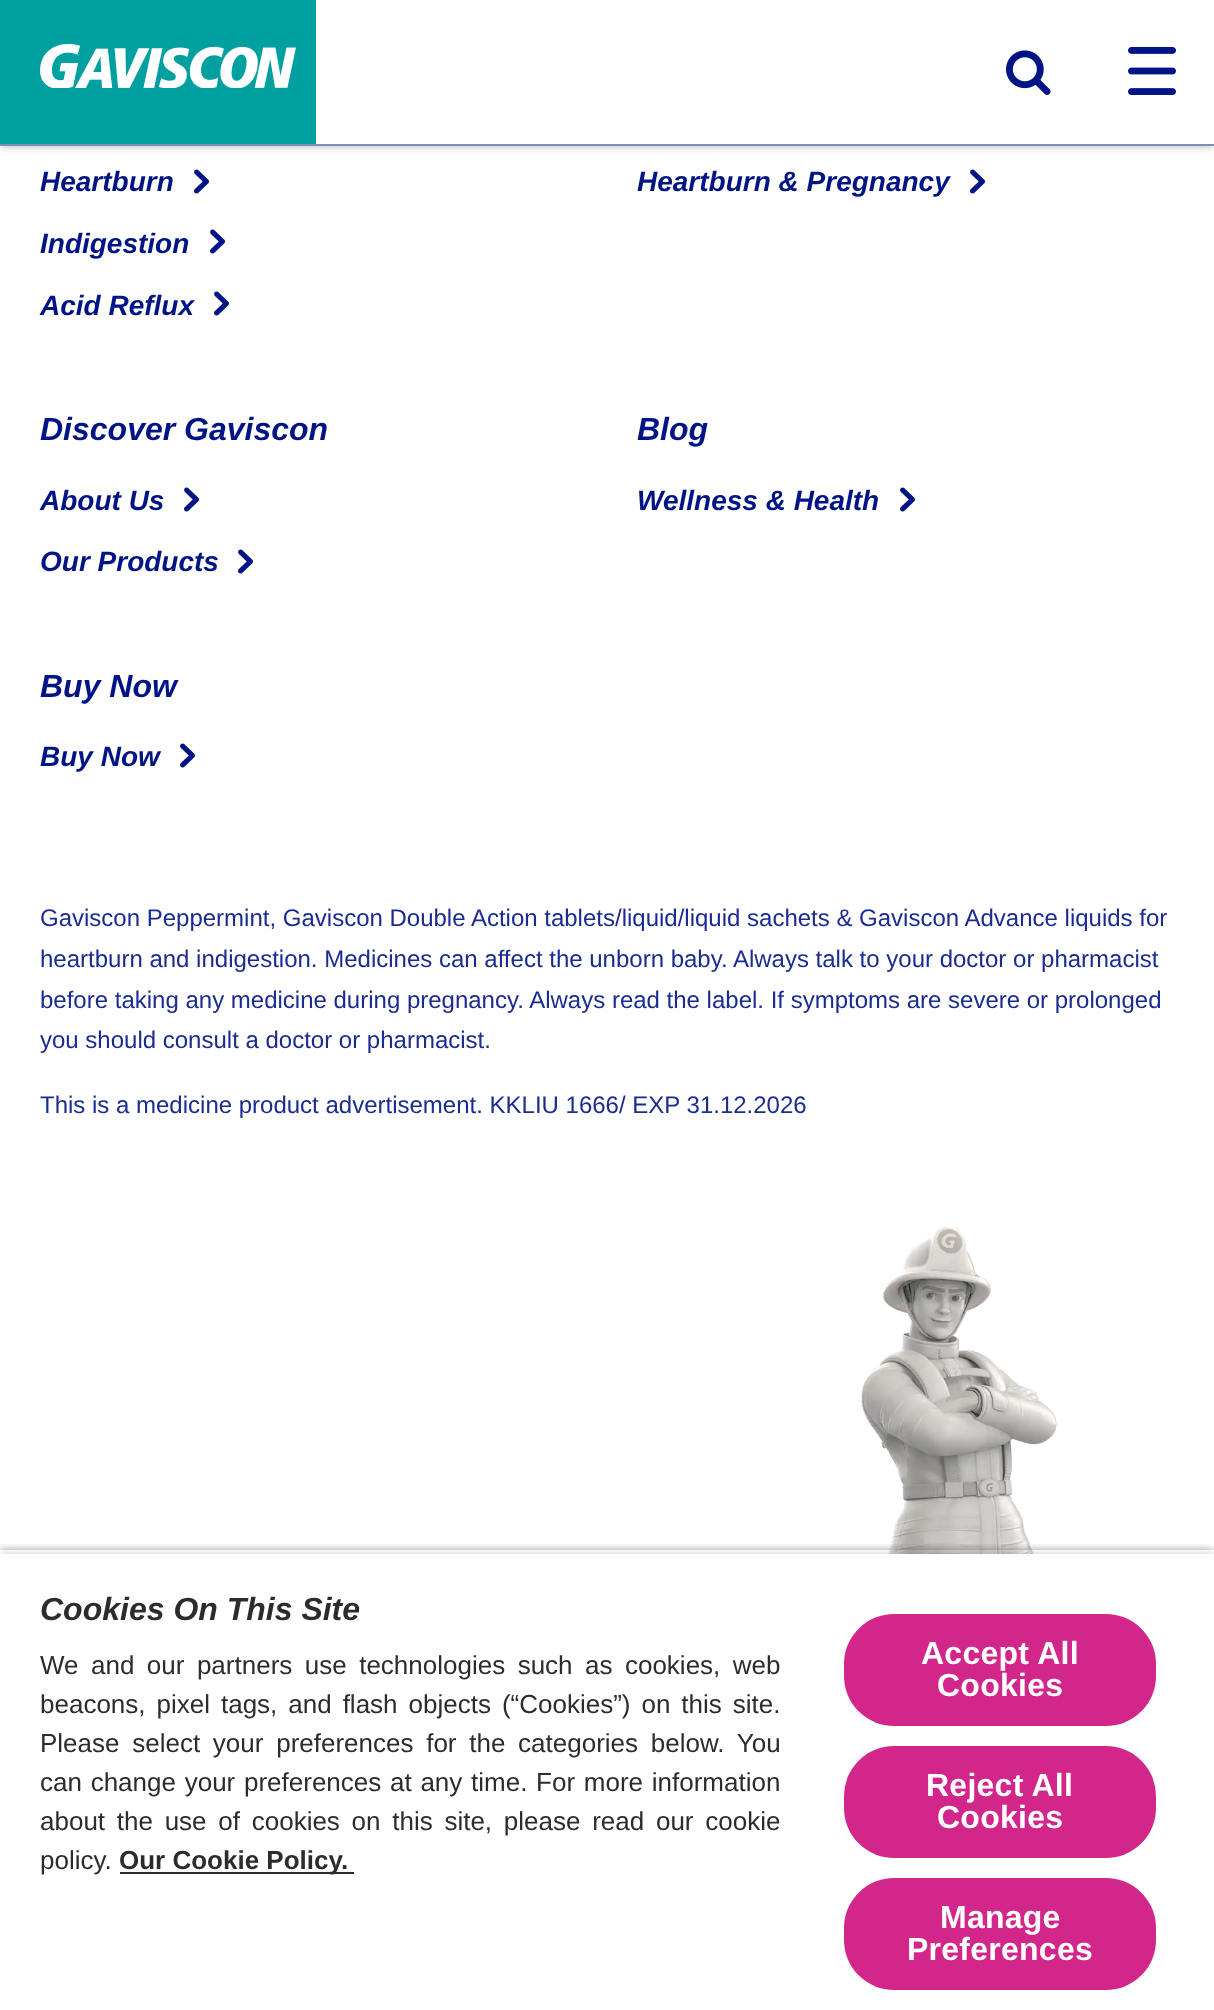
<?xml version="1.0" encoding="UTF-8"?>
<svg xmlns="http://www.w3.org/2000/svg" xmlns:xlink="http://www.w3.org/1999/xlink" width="1214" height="2010">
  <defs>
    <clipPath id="clip1"><rect x="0" y="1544" width="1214" height="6" /></clipPath>
  </defs>
  <rect width="100%" height="100%" fill="#ffffff" />
  <rect width="1214" height="146" fill="#000000" fill-opacity="0.3" filter="blur(5px)" />
  <rect x="316" width="898" height="144" fill="#ffffff" />
  <rect y="144" width="1214" height="2" fill="#7f8cb5" />
  <rect width="316" height="144" fill="#00a0a0" />
  <image x="40" y="44" width="256" height="44" xlink:href="image1.png" />
  <image x="1006" y="50" width="45" height="45" xlink:href="image2.png" />
  <image x="1128" y="47" width="48" height="48" xlink:href="image3.png" />
  <image x="194" y="169" width="15" height="25" xlink:href="image4.png" />
  <image x="210" y="229" width="15" height="25" xlink:href="image4.png" />
  <image x="214" y="291" width="15" height="25" xlink:href="image4.png" />
  <image x="970" y="169" width="15" height="25" xlink:href="image4.png" />
  <image x="184" y="487" width="15" height="25" xlink:href="image4.png" />
  <image x="238" y="549" width="15" height="25" xlink:href="image4.png" />
  <image x="900" y="487" width="15" height="25" xlink:href="image4.png" />
  <image x="180" y="743" width="15" height="25" xlink:href="image4.png" />
  <image x="860" y="1226" width="197" height="328" xlink:href="image5.png" />
  <g clip-path="url(#clip1)">
    <rect y="1550" width="1214" height="460" fill="#000000" fill-opacity="0.35" filter="blur(4px)" />
  </g>
  <rect y="1554" width="1214" height="456" fill="#000000" fill-opacity="0.2" filter="blur(4px)" />
  <rect y="1554" width="1214" height="456" fill="#ffffff" />
  <rect x="120" y="1872" width="234" height="2" fill="#2c2c2c" />
  <rect x="844" y="1614" width="312" height="112" rx="50" fill="#d2268a" />
  <rect x="844" y="1746" width="312" height="112" rx="50" fill="#d2268a" />
  <rect x="844" y="1878" width="312" height="112" rx="50" fill="#d2268a" />
  <text x="40" y="191" style="font-family: Liberation Sans; font-size: 28px; font-weight: bold; font-style: italic; fill: #001486">Heartburn</text>
  <text x="40" y="253" style="font-family: Liberation Sans; font-size: 28px; font-weight: bold; font-style: italic; fill: #001486">Indigestion</text>
  <text x="40" y="315" style="font-family: Liberation Sans; font-size: 28px; font-weight: bold; font-style: italic; fill: #001486">Acid Reflux</text>
  <text x="637" y="191" style="font-family: Liberation Sans; font-size: 28px; font-weight: bold; font-style: italic; fill: #001486">Heartburn &amp; Pregnancy</text>
  <text x="40" y="440" style="font-family: Liberation Sans; font-size: 32px; font-weight: bold; font-style: italic; fill: #001486">Discover Gaviscon</text>
  <text x="40" y="510" style="font-family: Liberation Sans; font-size: 28px; font-weight: bold; font-style: italic; fill: #001486">About Us</text>
  <text x="40" y="571" style="font-family: Liberation Sans; font-size: 28px; font-weight: bold; font-style: italic; fill: #001486">Our Products</text>
  <text x="637" y="440" style="font-family: Liberation Sans; font-size: 32px; font-weight: bold; font-style: italic; fill: #001486">Blog</text>
  <text x="637" y="510" style="font-family: Liberation Sans; font-size: 28px; font-weight: bold; font-style: italic; fill: #001486">Wellness &amp; Health</text>
  <text x="40" y="697" style="font-family: Liberation Sans; font-size: 32px; font-weight: bold; font-style: italic; fill: #001486">Buy Now</text>
  <text x="40" y="766" style="font-family: Liberation Sans; font-size: 28px; font-weight: bold; font-style: italic; fill: #001486">Buy Now</text>
  <text x="40" y="926" style="font-family: Liberation Sans; font-size: 24px; fill: #1a2c92">Gaviscon Peppermint, Gaviscon Double Action tablets/liquid/liquid sachets &amp; Gaviscon Advance liquids for</text>
  <text x="40" y="967" style="font-family: Liberation Sans; font-size: 24px; fill: #1a2c92">heartburn and indigestion. Medicines can affect the unborn baby. Always talk to your doctor or pharmacist</text>
  <text x="40" y="1008" style="font-family: Liberation Sans; font-size: 24px; fill: #1a2c92">before taking any medicine during pregnancy. Always read the label. If symptoms are severe or prolonged</text>
  <text x="40" y="1048" style="font-family: Liberation Sans; font-size: 24px; fill: #1a2c92">you should consult a doctor or pharmacist.</text>
  <text x="40" y="1113" style="font-family: Liberation Sans; font-size: 24px; fill: #1a2c92">This is a medicine product advertisement. KKLIU 1666/ EXP 31.12.2026</text>
  <text x="40" y="1620" style="font-family: Liberation Sans; font-size: 32px; font-weight: bold; font-style: italic; fill: #2c2c2c">Cookies On This Site</text>
  <text x="40" y="1674" word-spacing="5.25" style="font-family: Liberation Sans; font-size: 26px; fill: #2c2c2c">We and our partners use technologies such as cookies, web</text>
  <text x="40" y="1713" word-spacing="3.75" style="font-family: Liberation Sans; font-size: 26px; fill: #2c2c2c">beacons, pixel tags, and flash objects (“Cookies”) on this site.</text>
  <text x="40" y="1752" word-spacing="5.5" style="font-family: Liberation Sans; font-size: 26px; fill: #2c2c2c">Please select your preferences for the categories below. You</text>
  <text x="40" y="1791" word-spacing="1.5" style="font-family: Liberation Sans; font-size: 26px; fill: #2c2c2c">can change your preferences at any time. For more information</text>
  <text x="40" y="1830" word-spacing="4.5" style="font-family: Liberation Sans; font-size: 26px; fill: #2c2c2c">about the use of cookies on this site, please read our cookie</text>
  <text x="40" y="1869" style="font-family: Liberation Sans; font-size: 26px; fill: #2c2c2c">policy.</text>
  <text x="119" y="1869" style="font-family: Liberation Sans; font-size: 26px; font-weight: bold; fill: #2c2c2c">Our Cookie Policy.</text>
  <text x="921" y="1664" style="font-family: Liberation Sans; font-size: 32px; font-weight: bold; letter-spacing: 0.25px; fill: #ffffff">Accept All</text>
  <text x="937" y="1696" style="font-family: Liberation Sans; font-size: 32px; font-weight: bold; letter-spacing: 0.25px; fill: #ffffff">Cookies</text>
  <text x="926" y="1796" style="font-family: Liberation Sans; font-size: 32px; font-weight: bold; letter-spacing: 0.25px; fill: #ffffff">Reject All</text>
  <text x="937" y="1828" style="font-family: Liberation Sans; font-size: 32px; font-weight: bold; letter-spacing: 0.25px; fill: #ffffff">Cookies</text>
  <text x="940" y="1928" style="font-family: Liberation Sans; font-size: 32px; font-weight: bold; letter-spacing: 0.25px; fill: #ffffff">Manage</text>
  <text x="907" y="1960" style="font-family: Liberation Sans; font-size: 32px; font-weight: bold; letter-spacing: 0.25px; fill: #ffffff">Preferences</text>
</svg>
